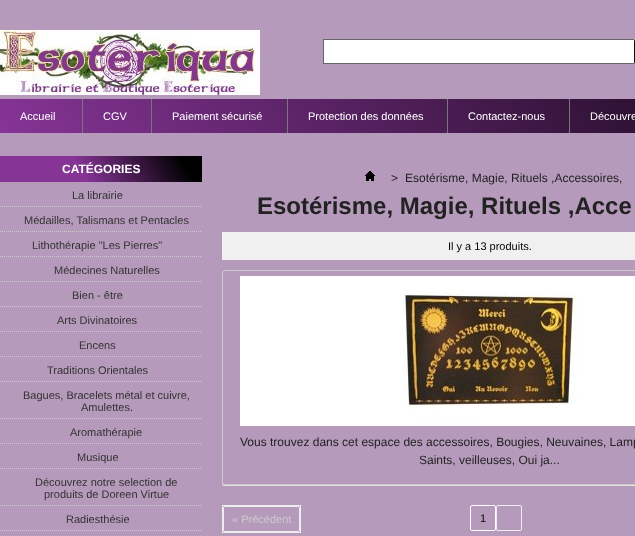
<?xml version="1.0" encoding="UTF-8"?>
<svg xmlns="http://www.w3.org/2000/svg" xmlns:xlink="http://www.w3.org/1999/xlink" width="635" height="536">
  <defs>
    <linearGradient id="g1" gradientUnits="userSpaceOnUse" x1="115" y1="332" x2="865" y2="-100"><stop offset="0" stop-color="#863496" /><stop offset="1" stop-color="#000000" /></linearGradient>
    <linearGradient id="g2" gradientUnits="userSpaceOnUse" x1="20" y1="216" x2="182" y2="122"><stop offset="0.4" stop-color="#863496" /><stop offset="0.9" stop-color="#000000" /></linearGradient>
    <clipPath id="clip1"><path d="M 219 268 h 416 v 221 h -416 z m 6 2 h 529 c 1.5 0 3 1.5 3 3 v 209 c 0 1.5 -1.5 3 -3 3 h -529 c -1.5 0 -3 -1.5 -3 -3 v -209 c 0 -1.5 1.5 -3 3 -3 z" clip-rule="evenodd" /></clipPath>
  </defs>
  <rect width="100%" height="100%" fill="#b59abb" />
  <image x="0" y="30" width="260" height="65" xlink:href="image1.png" />
  <rect x="324" y="40" width="310" height="23" fill="#ffffff" />
  <rect x="323" y="39" width="311" height="1" fill="#666666" />
  <rect x="323" y="63" width="311" height="1" fill="#666666" />
  <rect x="323" y="39" width="1" height="25" fill="#666666" />
  <rect x="634" y="39" width="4" height="25" rx="3" fill="#101010" />
  <rect y="99" width="635" height="34" fill="url(#g1)" />
  <rect x="82" y="99" width="1" height="34" fill="#777777" />
  <rect x="151" y="99" width="1" height="34" fill="#777777" />
  <rect x="287" y="99" width="1" height="34" fill="#777777" />
  <rect x="447" y="99" width="1" height="34" fill="#777777" />
  <rect x="569" y="99" width="1" height="34" fill="#777777" />
  <rect y="156" width="202" height="26" fill="url(#g2)" />
  <path d="M 0 206.5 h 202" fill="none" stroke="#cccccc" stroke-dasharray="1 1" />
  <path d="M 0 231.5 h 202" fill="none" stroke="#cccccc" stroke-dasharray="1 1" />
  <path d="M 0 256.5 h 202" fill="none" stroke="#cccccc" stroke-dasharray="1 1" />
  <path d="M 0 281.5 h 202" fill="none" stroke="#cccccc" stroke-dasharray="1 1" />
  <path d="M 0 306.5 h 202" fill="none" stroke="#cccccc" stroke-dasharray="1 1" />
  <path d="M 0 331.5 h 202" fill="none" stroke="#cccccc" stroke-dasharray="1 1" />
  <path d="M 0 356.5 h 202" fill="none" stroke="#cccccc" stroke-dasharray="1 1" />
  <path d="M 0 381.5 h 202" fill="none" stroke="#cccccc" stroke-dasharray="1 1" />
  <path d="M 0 418.5 h 202" fill="none" stroke="#cccccc" stroke-dasharray="1 1" />
  <path d="M 0 443.5 h 202" fill="none" stroke="#cccccc" stroke-dasharray="1 1" />
  <path d="M 0 468.5 h 202" fill="none" stroke="#cccccc" stroke-dasharray="1 1" />
  <path d="M 0 505.5 h 202" fill="none" stroke="#cccccc" stroke-dasharray="1 1" />
  <path d="M 0 530.5 h 202" fill="none" stroke="#cccccc" stroke-dasharray="1 1" />
  <image x="365" y="171" width="10" height="10" xlink:href="image2.png" />
  <rect x="222" y="232" width="413" height="28" fill="#f0f0f0" />
  <g clip-path="url(#clip1)">
    <rect x="222" y="271" width="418" height="215" rx="3" fill="#e2e2e2" filter="blur(0.5px)" />
  </g>
  <rect x="222.5" y="270.5" width="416" height="214" rx="2.5" fill="none" stroke="#cccccc" />
  <image x="240" y="276" width="395" height="150" xlink:href="image3.png" />
  <rect x="222.5" y="505.5" width="78" height="27" fill="none" stroke="#eeeeee" />
  <rect x="223.5" y="506.5" width="76" height="25" rx="1.5" fill="none" stroke="#eeeeee" />
  <rect x="470.5" y="505.5" width="25" height="25" rx="1.5" fill="none" stroke="#ffffff" />
  <rect x="496.5" y="505.5" width="25" height="25" rx="1.5" fill="none" stroke="#eeeeee" />
  <text x="20" y="120" style="font-family: Liberation Sans; font-size: 11px; fill: #ffffff">Accueil</text>
  <text x="103" y="120" style="font-family: Liberation Sans; font-size: 11px; fill: #ffffff">CGV</text>
  <text x="172" y="120" style="font-family: Liberation Sans; font-size: 11px; fill: #ffffff">Paiement sécurisé</text>
  <text x="308" y="120" style="font-family: Liberation Sans; font-size: 11px; fill: #ffffff">Protection des données</text>
  <text x="468" y="120" style="font-family: Liberation Sans; font-size: 11px; fill: #ffffff">Contactez-nous</text>
  <text x="590" y="120" style="font-family: Liberation Sans; font-size: 11px; fill: #ffffff">Découvre</text>
  <text x="62" y="173" style="font-family: Liberation Sans; font-size: 12px; font-weight: bold; fill: #ffffff">CATÉGORIES</text>
  <text x="72" y="199" style="font-family: Liberation Sans; font-size: 11px; fill: #333333">La librairie</text>
  <text x="24" y="224" style="font-family: Liberation Sans; font-size: 11px; fill: #333333">Médailles, Talismans et Pentacles</text>
  <text x="32" y="249" style="font-family: Liberation Sans; font-size: 11px; fill: #333333">Lithothérapie "Les Pierres"</text>
  <text x="54" y="274" style="font-family: Liberation Sans; font-size: 11px; fill: #333333">Médecines Naturelles</text>
  <text x="72" y="299" style="font-family: Liberation Sans; font-size: 11px; fill: #333333">Bien - être</text>
  <text x="57" y="324" style="font-family: Liberation Sans; font-size: 11px; fill: #333333">Arts Divinatoires</text>
  <text x="79" y="349" style="font-family: Liberation Sans; font-size: 11px; fill: #333333">Encens</text>
  <text x="47" y="374" style="font-family: Liberation Sans; font-size: 11px; fill: #333333">Traditions Orientales</text>
  <text x="23" y="399" style="font-family: Liberation Sans; font-size: 11px; fill: #333333">Bagues, Bracelets métal et cuivre,</text>
  <text x="81" y="411" style="font-family: Liberation Sans; font-size: 11px; fill: #333333">Amulettes.</text>
  <text x="70" y="436" style="font-family: Liberation Sans; font-size: 11px; fill: #333333">Aromathérapie</text>
  <text x="77" y="461" style="font-family: Liberation Sans; font-size: 11px; fill: #333333">Musique</text>
  <text x="35" y="486" style="font-family: Liberation Sans; font-size: 11px; fill: #333333">Découvrez notre selection de</text>
  <text x="44" y="498" style="font-family: Liberation Sans; font-size: 11px; fill: #333333">produits de Doreen Virtue</text>
  <text x="66" y="523" style="font-family: Liberation Sans; font-size: 11px; fill: #333333">Radiesthésie</text>
  <text x="391" y="182" style="font-family: Liberation Sans; font-size: 12px; fill: #222222">&gt;</text>
  <text x="405" y="182" style="font-family: Liberation Sans; font-size: 12px; fill: #222222">Esotérisme, Magie, Rituels ,Accessoires,</text>
  <text x="257" y="214" style="font-family: Liberation Sans; font-size: 24px; font-weight: bold; fill: #222222">Esotérisme, Magie, Rituels ,Acce</text>
  <text x="448" y="250" style="font-family: Liberation Sans; font-size: 11px; fill: #000000">Il y a 13 produits.</text>
  <text x="240" y="446" style="font-family: Liberation Sans; font-size: 12px; fill: #222222">Vous trouvez dans cet espace des accessoires, Bougies, Neuvaines, Lamp</text>
  <text x="419" y="464" style="font-family: Liberation Sans; font-size: 12px; fill: #222222">Saints, veilleuses, Oui ja...</text>
  <text x="232" y="523" style="font-family: Liberation Sans; font-size: 11px; fill: #cccccc">« Précédent</text>
  <text x="480" y="522" style="font-family: Liberation Sans; font-size: 11px; fill: #000000">1</text>
</svg>
